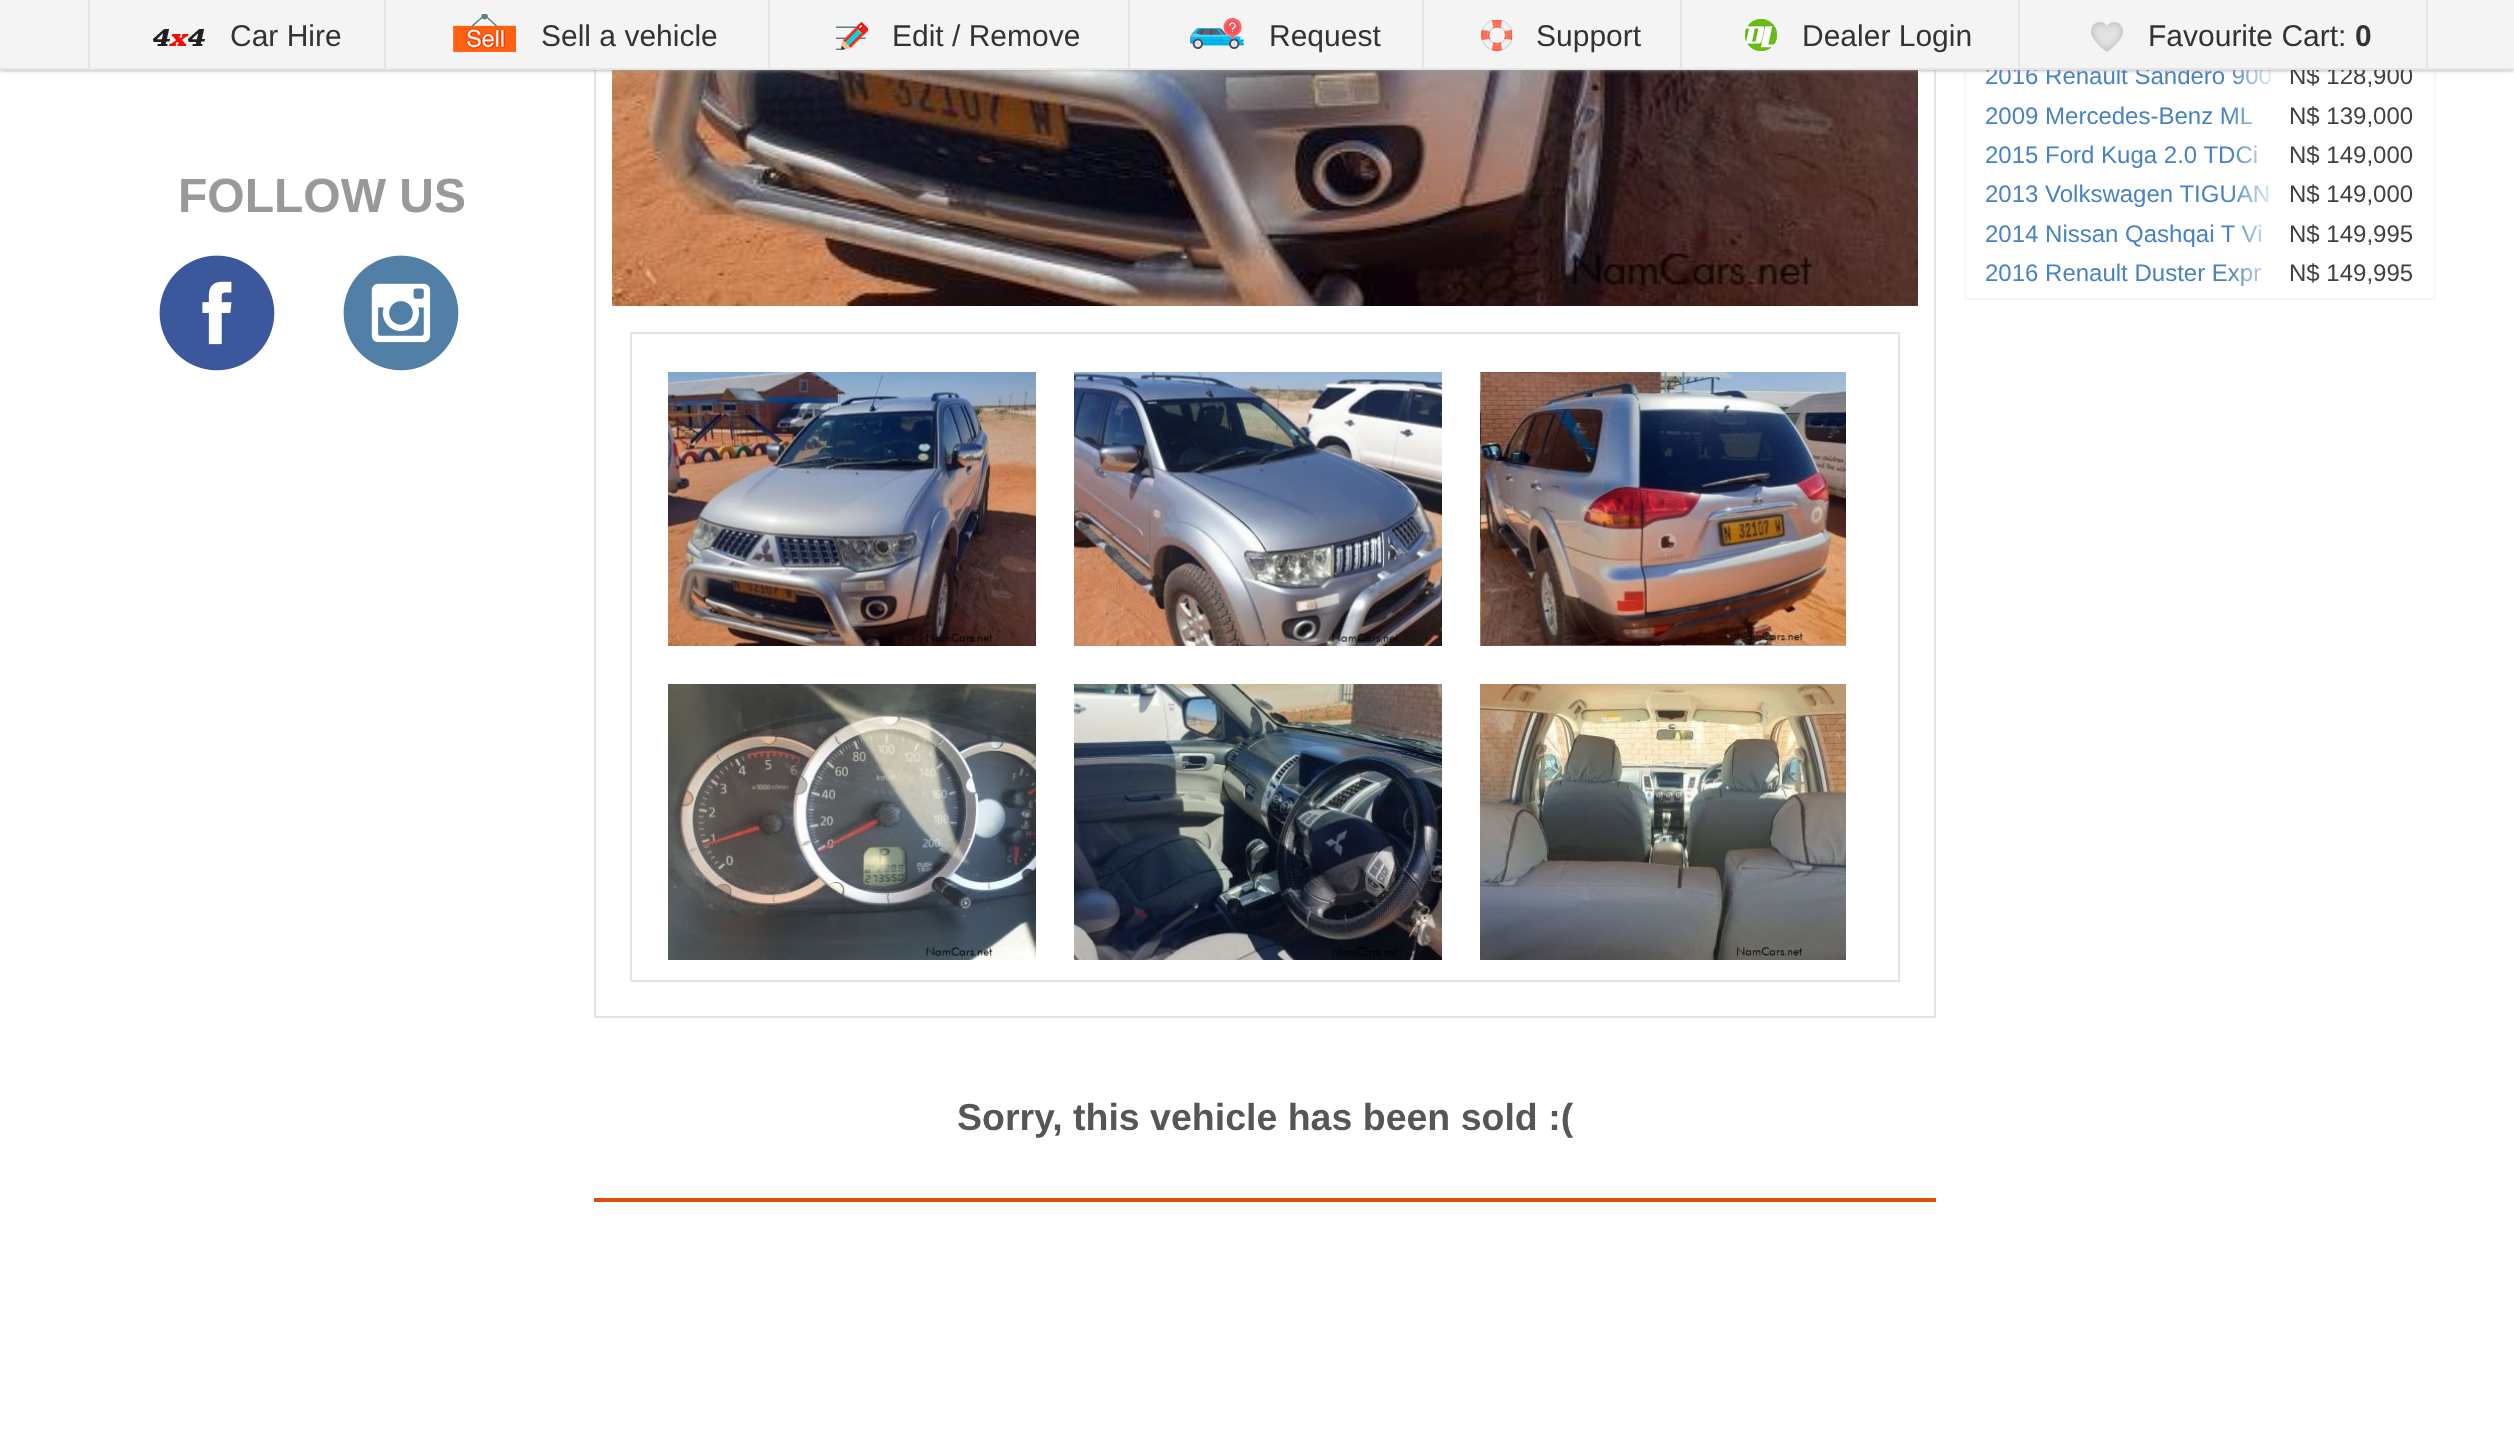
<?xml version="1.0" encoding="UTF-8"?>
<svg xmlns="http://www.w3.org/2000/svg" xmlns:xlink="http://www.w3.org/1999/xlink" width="2514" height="1438">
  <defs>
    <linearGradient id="g1" gradientUnits="userSpaceOnUse" x1="2230" y1="77" x2="2434" y2="77"><stop offset="0" stop-color="#ffffff" stop-opacity="0" /><stop offset="0.24" stop-color="#ffffff" /></linearGradient>
    <linearGradient id="g2" gradientUnits="userSpaceOnUse" x1="2230" y1="116" x2="2434" y2="116"><stop offset="0" stop-color="#ffffff" stop-opacity="0" /><stop offset="0.24" stop-color="#ffffff" /></linearGradient>
    <linearGradient id="g3" gradientUnits="userSpaceOnUse" x1="2230" y1="155" x2="2434" y2="155"><stop offset="0" stop-color="#ffffff" stop-opacity="0" /><stop offset="0.24" stop-color="#ffffff" /></linearGradient>
    <linearGradient id="g4" gradientUnits="userSpaceOnUse" x1="2230" y1="195" x2="2434" y2="195"><stop offset="0" stop-color="#ffffff" stop-opacity="0" /><stop offset="0.24" stop-color="#ffffff" /></linearGradient>
    <linearGradient id="g5" gradientUnits="userSpaceOnUse" x1="2230" y1="234" x2="2434" y2="234"><stop offset="0" stop-color="#ffffff" stop-opacity="0" /><stop offset="0.24" stop-color="#ffffff" /></linearGradient>
    <linearGradient id="g6" gradientUnits="userSpaceOnUse" x1="2230" y1="273" x2="2434" y2="273"><stop offset="0" stop-color="#ffffff" stop-opacity="0" /><stop offset="0.24" stop-color="#ffffff" /></linearGradient>
  </defs>
  <rect width="100%" height="100%" fill="#ffffff" />
  <image x="159" y="255" width="116" height="116" xlink:href="image8.png" />
  <image x="343" y="255" width="116" height="116" xlink:href="image9.png" />
  <rect x="2434" y="70" width="2" height="230" fill="#f4f8f0" />
  <rect x="1964" y="298" width="472" height="2" fill="#f4f8f0" />
  <rect x="1964" y="70" width="2" height="230" fill="#f4f8f0" />
  <rect x="595" y="-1" width="1340" height="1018" fill="none" stroke="#e2e2e2" stroke-width="2" />
  <image x="612" y="70" width="1306" height="236" xlink:href="image10.png" />
  <rect x="631" y="333" width="1268" height="648" fill="none" stroke="#e4e4e4" stroke-width="2" />
  <image x="668" y="372" width="368" height="274" xlink:href="image11.png" />
  <image x="1074" y="372" width="368" height="274" xlink:href="image12.png" />
  <image x="1480" y="372" width="366" height="274" xlink:href="image13.png" />
  <image x="668" y="684" width="368" height="276" xlink:href="image14.png" />
  <image x="1074" y="684" width="368" height="276" xlink:href="image15.png" />
  <image x="1480" y="684" width="366" height="276" xlink:href="image16.png" />
  <rect x="594" y="1198" width="1342" height="4" fill="#dc4c0b" />
  <text x="178" y="212" style="font-family: Liberation Sans; font-size: 48px; font-weight: bold; fill: #999999">FOLLOW US</text>
  <text x="1985" y="84" style="font-family: Liberation Sans; font-size: 24px; fill: #4782c3">2016 Renault Sandero 900</text>
  <rect x="2233" y="70" width="38" height="15" fill="url(#g1)" />
  <rect width="2514" height="70" fill="#999999" filter="blur(2px)" />
  <text x="2289" y="84" style="font-family: Liberation Sans; font-size: 24px; fill: #404040">N$ 128,900</text>
  <rect width="2514" height="68" fill="#f4f4f4" />
  <image x="2091" y="22" width="32" height="30" xlink:href="image7.png" />
  <image x="1745" y="19" width="32" height="32" xlink:href="image6.png" />
  <image x="1481" y="20" width="31" height="31" xlink:href="image5.png" />
  <image x="1190" y="18" width="54" height="31" xlink:href="image4.png" />
  <image x="836" y="22" width="32" height="28" xlink:href="image3.png" />
  <image x="453" y="14" width="63" height="38" xlink:href="image2.png" />
  <image x="153" y="29" width="52" height="17" xlink:href="image1.png" />
  <text x="2355" y="46" style="font-family: Liberation Sans; font-size: 30px; font-weight: bold; fill: #333333">0</text>
  <text x="2148" y="46" style="font-family: Liberation Sans; font-size: 30px; fill: #333333">Favourite Cart:</text>
  <rect x="2018" width="2" height="68" fill="#e5e5e5" />
  <rect x="2426" width="2" height="68" fill="#e5e5e5" />
  <text x="1802" y="46" style="font-family: Liberation Sans; font-size: 30px; fill: #333333">Dealer Login</text>
  <rect x="1680" width="2" height="68" fill="#e5e5e5" />
  <text x="1536" y="46" style="font-family: Liberation Sans; font-size: 30px; fill: #333333">Support</text>
  <rect x="1422" width="2" height="68" fill="#e5e5e5" />
  <text x="1269" y="46" style="font-family: Liberation Sans; font-size: 30px; fill: #333333">Request</text>
  <rect x="1128" width="2" height="68" fill="#e5e5e5" />
  <text x="892" y="46" style="font-family: Liberation Sans; font-size: 30px; fill: #333333">Edit / Remove</text>
  <rect x="768" width="2" height="68" fill="#e5e5e5" />
  <text x="541" y="46" style="font-family: Liberation Sans; font-size: 30px; fill: #333333">Sell a vehicle</text>
  <rect x="384" width="2" height="68" fill="#e5e5e5" />
  <text x="230" y="46" style="font-family: Liberation Sans; font-size: 30px; fill: #333333">Car Hire</text>
  <rect x="88" width="2" height="68" fill="#e5e5e5" />
  <rect y="68" width="2514" height="2" fill="#e5e5e5" />
  <text x="1985" y="124" style="font-family: Liberation Sans; font-size: 24px; fill: #4782c3">2009 Mercedes-Benz ML</text>
  <rect x="2231" y="107" width="22" height="17" fill="url(#g2)" />
  <text x="2289" y="124" style="font-family: Liberation Sans; font-size: 24px; fill: #404040">N$ 139,000</text>
  <text x="1985" y="163" style="font-family: Liberation Sans; font-size: 24px; fill: #4782c3">2015 Ford Kuga 2.0 TDCi</text>
  <rect x="2231" y="145" width="26" height="19" fill="url(#g3)" />
  <text x="2289" y="163" style="font-family: Liberation Sans; font-size: 24px; fill: #404040">N$ 149,000</text>
  <text x="1985" y="202" style="font-family: Liberation Sans; font-size: 24px; fill: #4782c3">2013 Volkswagen TIGUAN</text>
  <rect x="2231" y="185" width="38" height="17" fill="url(#g4)" />
  <text x="2289" y="202" style="font-family: Liberation Sans; font-size: 24px; fill: #404040">N$ 149,000</text>
  <text x="1985" y="242" style="font-family: Liberation Sans; font-size: 24px; fill: #4782c3">2014 Nissan Qashqai T Vi</text>
  <rect x="2231" y="224" width="30" height="18" fill="url(#g5)" />
  <text x="2289" y="242" style="font-family: Liberation Sans; font-size: 24px; fill: #404040">N$ 149,995</text>
  <text x="1985" y="281" style="font-family: Liberation Sans; font-size: 24px; fill: #4782c3">2016 Renault Duster Expr</text>
  <rect x="2231" y="268" width="30" height="18" fill="url(#g6)" />
  <text x="2289" y="281" style="font-family: Liberation Sans; font-size: 24px; fill: #404040">N$ 149,995</text>
  <text x="957" y="1130" style="font-family: Liberation Sans; font-size: 37.5px; font-weight: bold; fill: #575656">Sorry, this vehicle has been sold :(</text>
</svg>
